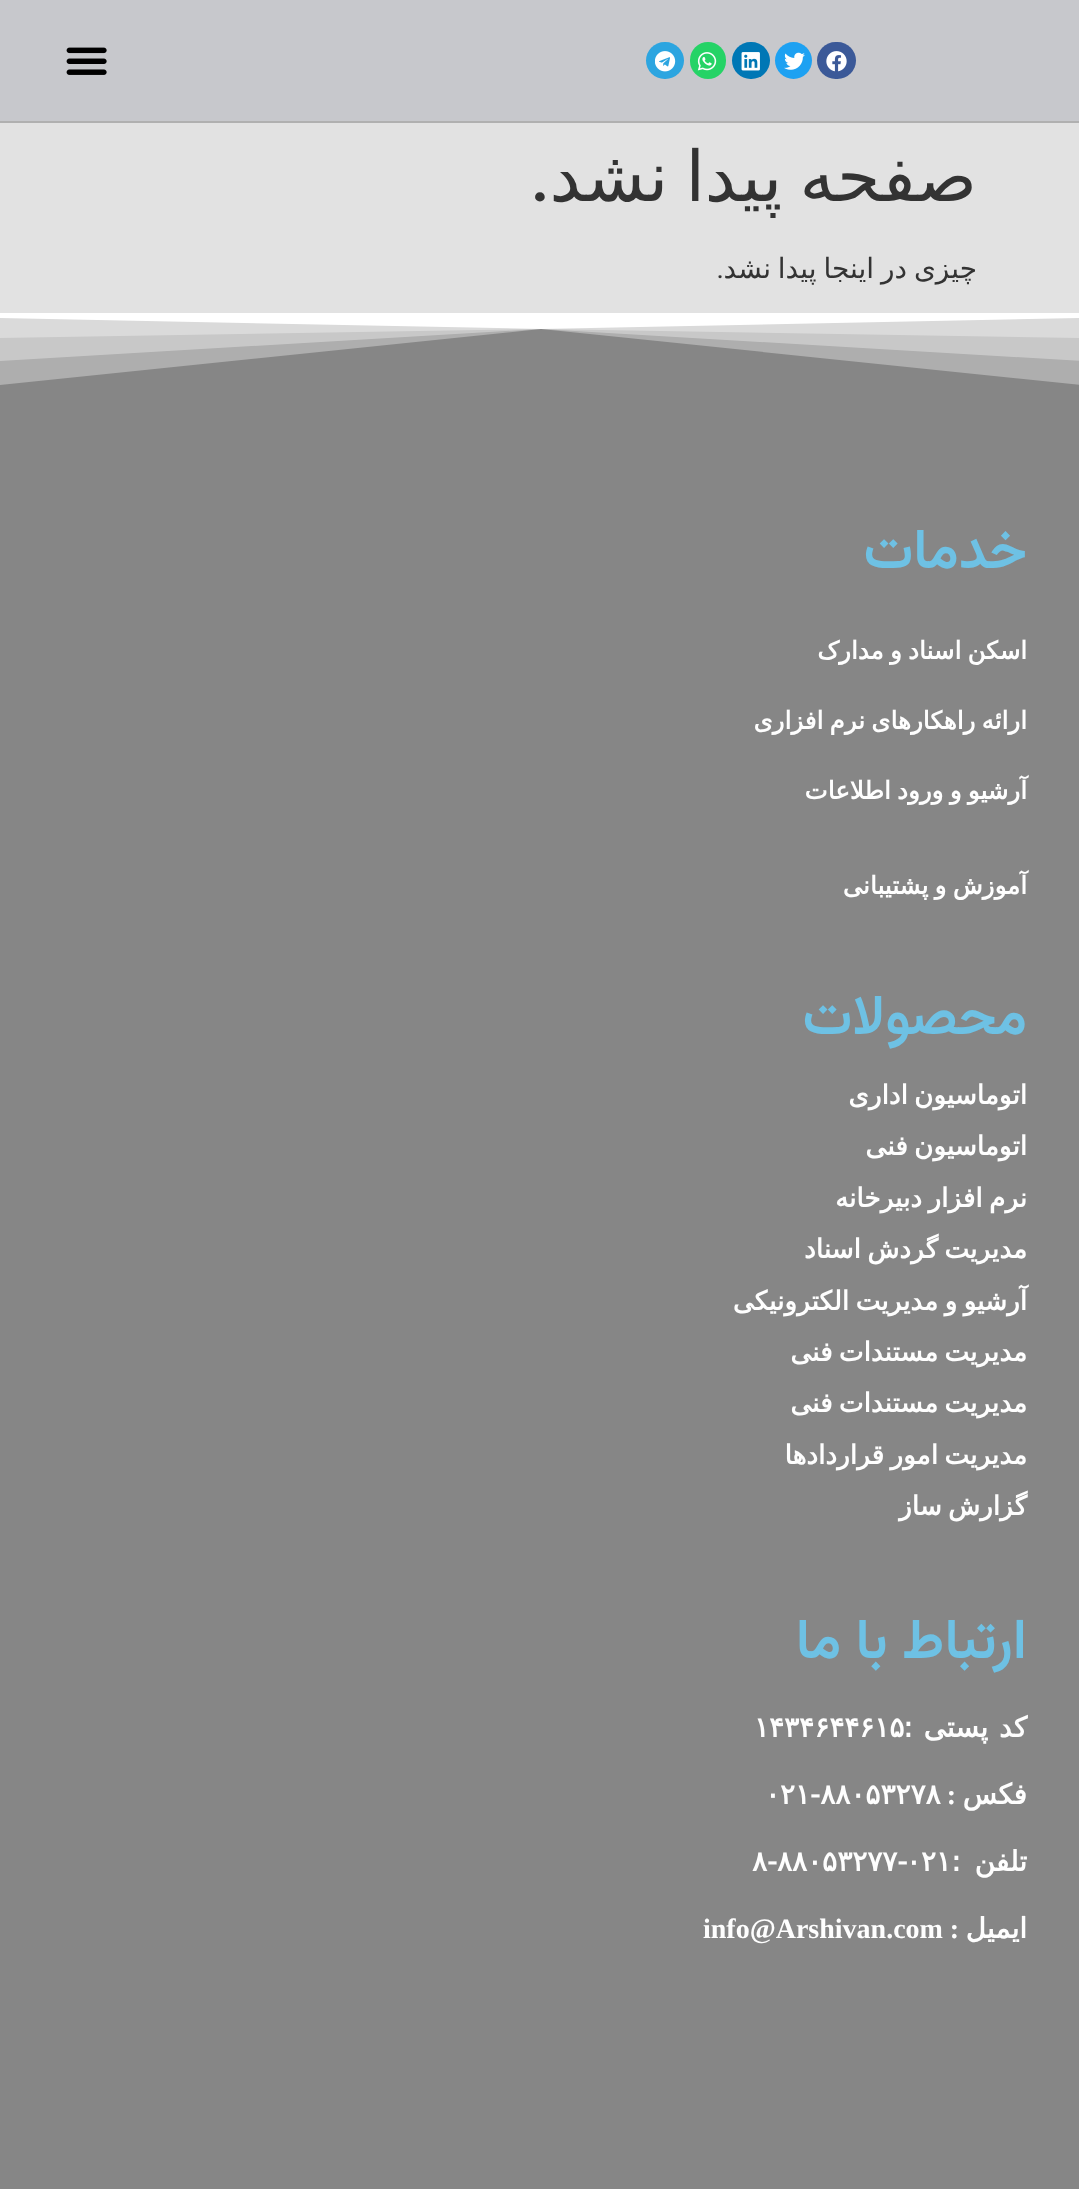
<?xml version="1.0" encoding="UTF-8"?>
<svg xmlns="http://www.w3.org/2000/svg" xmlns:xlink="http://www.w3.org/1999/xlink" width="1079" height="2189">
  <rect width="100%" height="100%" fill="#e2e2e2" />
  <rect width="1079" height="121" fill="#c7c8cc" />
  <rect y="121" width="1079" height="2" fill="#b0b0b0" />
  <rect x="817" y="42" width="39" height="37" rx="18.5" fill="#3b5998" />
  <image x="826" y="51" width="21" height="21" xlink:href="image1.png" />
  <circle cx="793.5" cy="60.5" r="18.5" fill="#1da1f2" />
  <image x="784" y="52" width="21" height="18" xlink:href="image2.png" />
  <rect x="732" y="42" width="38" height="37" rx="18.5" fill="#0077b5" />
  <image x="741" y="52" width="19" height="19" xlink:href="image3.png" />
  <rect x="690" y="42" width="36" height="37" rx="18" fill="#25d366" />
  <image x="697" y="52" width="20" height="19" xlink:href="image4.png" />
  <rect x="646" y="42" width="38" height="37" rx="18.5" fill="#2ca5e0" />
  <image x="655" y="51" width="21" height="21" xlink:href="image5.png" />
  <image x="66" y="47" width="41" height="28" xlink:href="image6.png" />
  <rect y="318" width="1079" height="1871" fill="#868686" />
  <path d="M 0 313 v 72 l 541 -56 l 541 56 v -72 z" fill="#ffffff" fill-opacity="0.33" />
  <path d="M 0 313 v 48 l 541 -32 l 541 32 v -48 z" fill="#ffffff" fill-opacity="0.33" />
  <path d="M 0 313 v 25 l 541 -9 l 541 9 v -25 z" fill="#ffffff" fill-opacity="0.33" />
  <path d="M 0 313 v 5 l 541 11 l 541 -11 v -5 z" fill="#ffffff" />
  <text x="977" y="201" word-spacing="-5" style="font-family: DejaVu Sans; font-size: 70px; direction: rtl; fill: #333333">صفحه پیدا نشد</text>
  <text x="550" y="201" style="font-family: Roboto; font-size: 70px; font-weight: 500; direction: rtl; fill: #333333">.</text>
  <text x="977" y="278" word-spacing="-2" style="font-family: DejaVu Sans; font-size: 28px; direction: rtl; fill: #333333">چیزی در اینجا پیدا نشد</text>
  <text x="724" y="278" style="font-family: Roboto; font-size: 28px; direction: rtl; fill: #333333">.</text>
  <text x="1027" y="568" style="font-family: Vazirmatn; font-size: 56px; font-weight: 600; direction: rtl; fill: #6ec1e4">خدمات</text>
  <text x="1027" y="659" word-spacing="-1.5" style="font-family: DejaVu Sans; font-size: 24.5px; font-weight: bold; direction: rtl; fill: #fefefe">اسکن اسناد و مدارک</text>
  <text x="1027" y="729" word-spacing="-1.5" style="font-family: DejaVu Sans; font-size: 24.5px; font-weight: bold; direction: rtl; fill: #fefefe">ارائه راهکارهای نرم افزاری</text>
  <text x="1027" y="799" word-spacing="-1.5" style="font-family: DejaVu Sans; font-size: 24.5px; font-weight: bold; direction: rtl; fill: #fefefe">آرشیو و ورود اطلاعات</text>
  <text x="1027" y="894" word-spacing="-1.5" style="font-family: DejaVu Sans; font-size: 24.5px; font-weight: bold; direction: rtl; fill: #fefefe">آموزش و پشتیبانی</text>
  <text x="1027" y="1034" style="font-family: Vazirmatn; font-size: 56px; font-weight: 600; direction: rtl; fill: #6ec1e4">محصولات</text>
  <text x="1027" y="1104" word-spacing="-2" style="font-family: DejaVu Sans; font-size: 26.25px; font-weight: bold; direction: rtl; fill: #fefefe">اتوماسیون اداری</text>
  <text x="1027" y="1155" word-spacing="-2" style="font-family: DejaVu Sans; font-size: 26.25px; font-weight: bold; direction: rtl; fill: #fefefe">اتوماسیون فنی</text>
  <text x="1027" y="1207" word-spacing="-2" style="font-family: DejaVu Sans; font-size: 26.25px; font-weight: bold; direction: rtl; fill: #fefefe">نرم افزار دبیرخانه</text>
  <text x="1027" y="1258" word-spacing="-2" style="font-family: DejaVu Sans; font-size: 26.25px; font-weight: bold; direction: rtl; fill: #fefefe">مدیریت گردش اسناد</text>
  <text x="1027" y="1310" word-spacing="-2" style="font-family: DejaVu Sans; font-size: 26.25px; font-weight: bold; direction: rtl; fill: #fefefe">آرشیو و مدیریت الکترونیکی</text>
  <text x="1027" y="1361" word-spacing="-2" style="font-family: DejaVu Sans; font-size: 26.25px; font-weight: bold; direction: rtl; fill: #fefefe">مدیریت مستندات فنی</text>
  <text x="1027" y="1412" word-spacing="-2" style="font-family: DejaVu Sans; font-size: 26.25px; font-weight: bold; direction: rtl; fill: #fefefe">مدیریت مستندات فنی</text>
  <text x="1027" y="1464" word-spacing="-2" style="font-family: DejaVu Sans; font-size: 26.25px; font-weight: bold; direction: rtl; fill: #fefefe">مدیریت امور قراردادها</text>
  <text x="1027" y="1515" word-spacing="-2" style="font-family: DejaVu Sans; font-size: 26.25px; font-weight: bold; direction: rtl; fill: #fefefe">گزارش ساز</text>
  <text x="1027" y="1658" style="font-family: Vazirmatn; font-size: 56px; font-weight: 600; direction: rtl; fill: #6ec1e4">ارتباط با ما</text>
  <text x="1027" y="1737" word-spacing="2" style="font-family: DejaVu Sans; font-size: 28px; font-weight: bold; direction: rtl; fill: #fefefe">کد پستی :</text>
  <text x="754" y="1737" style="font-family: DejaVu Sans; font-size: 28px; font-weight: bold; fill: #fefefe">۱۴۳۴۶۴۴۶۱۵</text>
  <text x="1027" y="1804" style="font-family: DejaVu Sans; font-size: 28px; font-weight: bold; direction: rtl; fill: #fefefe">فکس</text>
  <text x="956" y="1804" style="font-family: Liberation Serif; font-size: 28px; font-weight: bold; direction: rtl; fill: #fefefe">:</text>
  <text x="765" y="1804" style="font-family: DejaVu Sans; font-size: 28px; font-weight: bold; fill: #fefefe">۰۲۱-۸۸۰۵۳۲۷۸</text>
  <text x="1027" y="1871" word-spacing="5" style="font-family: DejaVu Sans; font-size: 28px; font-weight: bold; direction: rtl; fill: #fefefe">تلفن :</text>
  <text x="906" y="1871" style="font-family: DejaVu Sans; font-size: 28px; font-weight: bold; fill: #fefefe">۰۲۱</text>
  <text x="777" y="1871" style="font-family: DejaVu Sans; font-size: 28px; font-weight: bold; fill: #fefefe">۸۸۰۵۳۲۷۷-</text>
  <text x="752" y="1871" style="font-family: DejaVu Sans; font-size: 28px; font-weight: bold; fill: #fefefe">۸-</text>
  <text x="1027" y="1938" style="font-family: DejaVu Sans; font-size: 28px; font-weight: bold; direction: rtl; fill: #fefefe">ایمیل</text>
  <text x="959" y="1938" style="font-family: Liberation Serif; font-size: 28px; font-weight: bold; direction: rtl; fill: #fefefe">:</text>
  <text x="703" y="1938" style="font-family: Liberation Serif; font-size: 28px; font-weight: bold; fill: #fefefe">info@Arshivan.com</text>
</svg>
